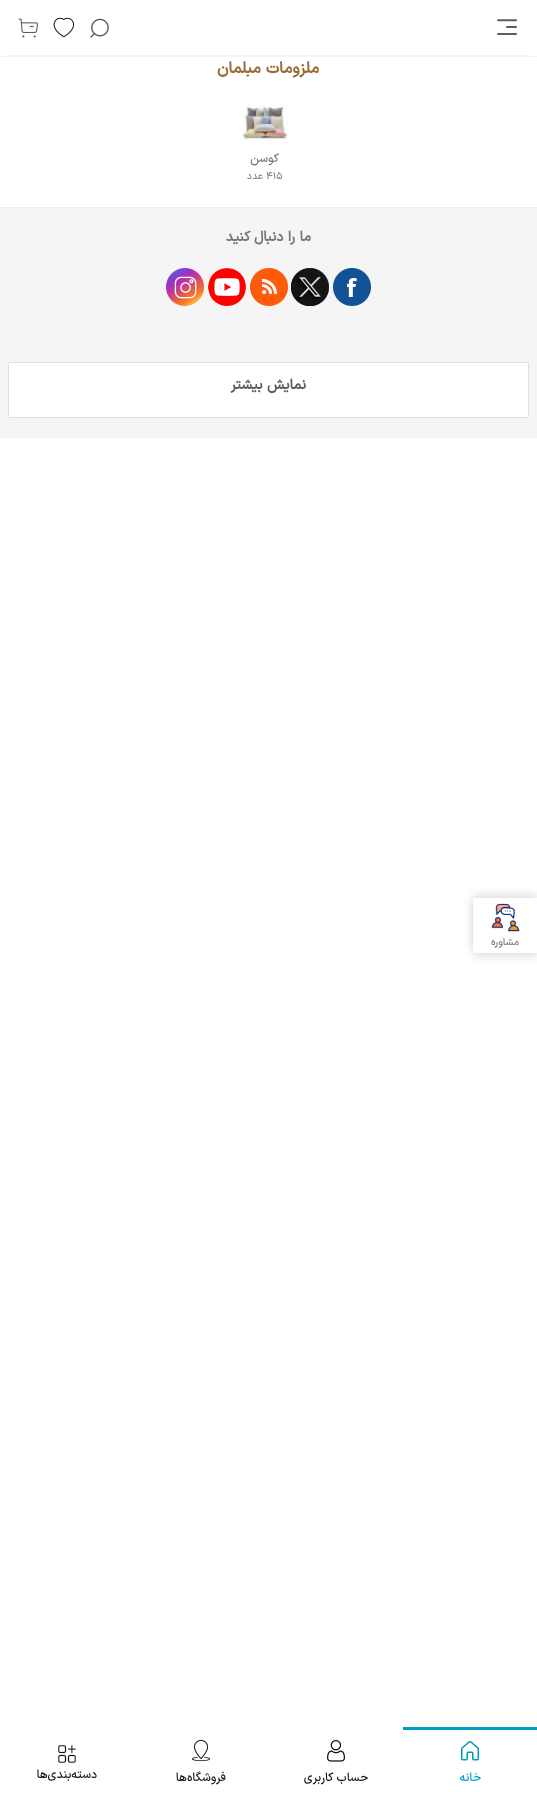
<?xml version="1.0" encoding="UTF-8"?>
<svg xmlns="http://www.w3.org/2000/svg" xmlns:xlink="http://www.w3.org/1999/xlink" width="537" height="1796">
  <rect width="100%" height="100%" fill="#ffffff" />
  <rect y="56" width="537" height="1" fill="#f5f5f5" />
  <rect x="8" y="55" width="521" height="1" fill="#f5f5f5" />
  <image x="497" y="19" width="20" height="16" xlink:href="image1.png" />
  <image x="90" y="18" width="19" height="20" xlink:href="image2.png" />
  <image x="53" y="17" width="21" height="21" xlink:href="image3.png" />
  <image x="18" y="18" width="20" height="20" xlink:href="image4.png" />
  <rect y="207" width="537" height="1" fill="#eeeeee" />
  <image x="242" y="104" width="48" height="36" xlink:href="image5.png" />
  <rect y="208" width="537" height="230" fill="#f5f5f5" />
  <image x="333" y="268" width="38" height="38" xlink:href="image6.png" />
  <image x="291" y="268" width="38" height="38" xlink:href="image7.png" />
  <image x="250" y="268" width="38" height="38" xlink:href="image8.png" />
  <image x="208" y="268" width="38" height="38" xlink:href="image9.png" />
  <image x="166" y="268" width="38" height="38" xlink:href="image10.png" />
  <rect x="8.5" y="362.5" width="520" height="55" rx="1.5" fill="#ffffff" stroke="#e0e0e0" />
  <rect x="473" y="894" width="64" height="55" rx="2" fill="#000000" fill-opacity="0.1" filter="blur(5px)" />
  <rect x="473" y="902" width="64" height="55" rx="2" fill="#000000" fill-opacity="0.1" filter="blur(5px)" />
  <path d="M 475 898 h 62 v 55 h -62 c -1 0 -2 -1 -2 -2 v -51 c 0 -1 1 -2 2 -2 z" fill="#ffffff" />
  <image x="491" y="903" width="29" height="29" xlink:href="image11.png" />
  <rect x="403" y="1727" width="134" height="3" fill="#009dc3" />
  <image x="461" y="1741" width="18" height="20" xlink:href="image12.png" />
  <image x="327" y="1740" width="18" height="22" xlink:href="image13.png" />
  <image x="191" y="1739" width="20" height="23" xlink:href="image14.png" />
  <image x="58" y="1745" width="18" height="18" xlink:href="image15.png" />
  <text x="319" y="73" style="font-family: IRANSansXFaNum; font-size: 16px; font-weight: bold; direction: rtl; fill: #9d6a37">ملزومات مبلمان</text>
  <text x="279" y="162" style="font-family: IRANSansXFaNum; font-size: 12px; font-weight: 500; direction: rtl; fill: #777777">کوسن</text>
  <text x="266" y="179" style="font-family: IRANSansXFaNum; font-size: 10px; font-weight: 500; fill: #848484">415</text>
  <text x="263" y="179" style="font-family: IRANSansXFaNum; font-size: 10px; font-weight: 500; direction: rtl; fill: #848484">عدد</text>
  <text x="311" y="241" style="font-family: IRANSansXFaNum; font-size: 14px; font-weight: bold; direction: rtl; fill: #777777">ما را دنبال کنید</text>
  <text x="306" y="389" style="font-family: IRANSansXFaNum; font-size: 14px; font-weight: bold; direction: rtl; fill: #5b5b5b">نمایش بیشتر</text>
  <text x="519" y="945" style="font-family: IRANSansXFaNum; font-size: 10px; font-weight: 500; direction: rtl; fill: #777777">مشاوره</text>
  <text x="481" y="1781" style="font-family: IRANSansXFaNum; font-size: 12px; font-weight: 500; direction: rtl; fill: #009dc3">خانه</text>
  <text x="368" y="1781" style="font-family: IRANSansXFaNum; font-size: 12px; font-weight: 500; direction: rtl; fill: #121212">حساب کاربری</text>
  <text x="226" y="1781" style="font-family: IRANSansXFaNum; font-size: 12px; font-weight: 500; direction: rtl; fill: #121212">فروشگاه‌ها</text>
  <text x="97" y="1778" style="font-family: IRANSansXFaNum; font-size: 12px; font-weight: 500; direction: rtl; fill: #121212">دسته‌بندی‌ها</text>
</svg>
